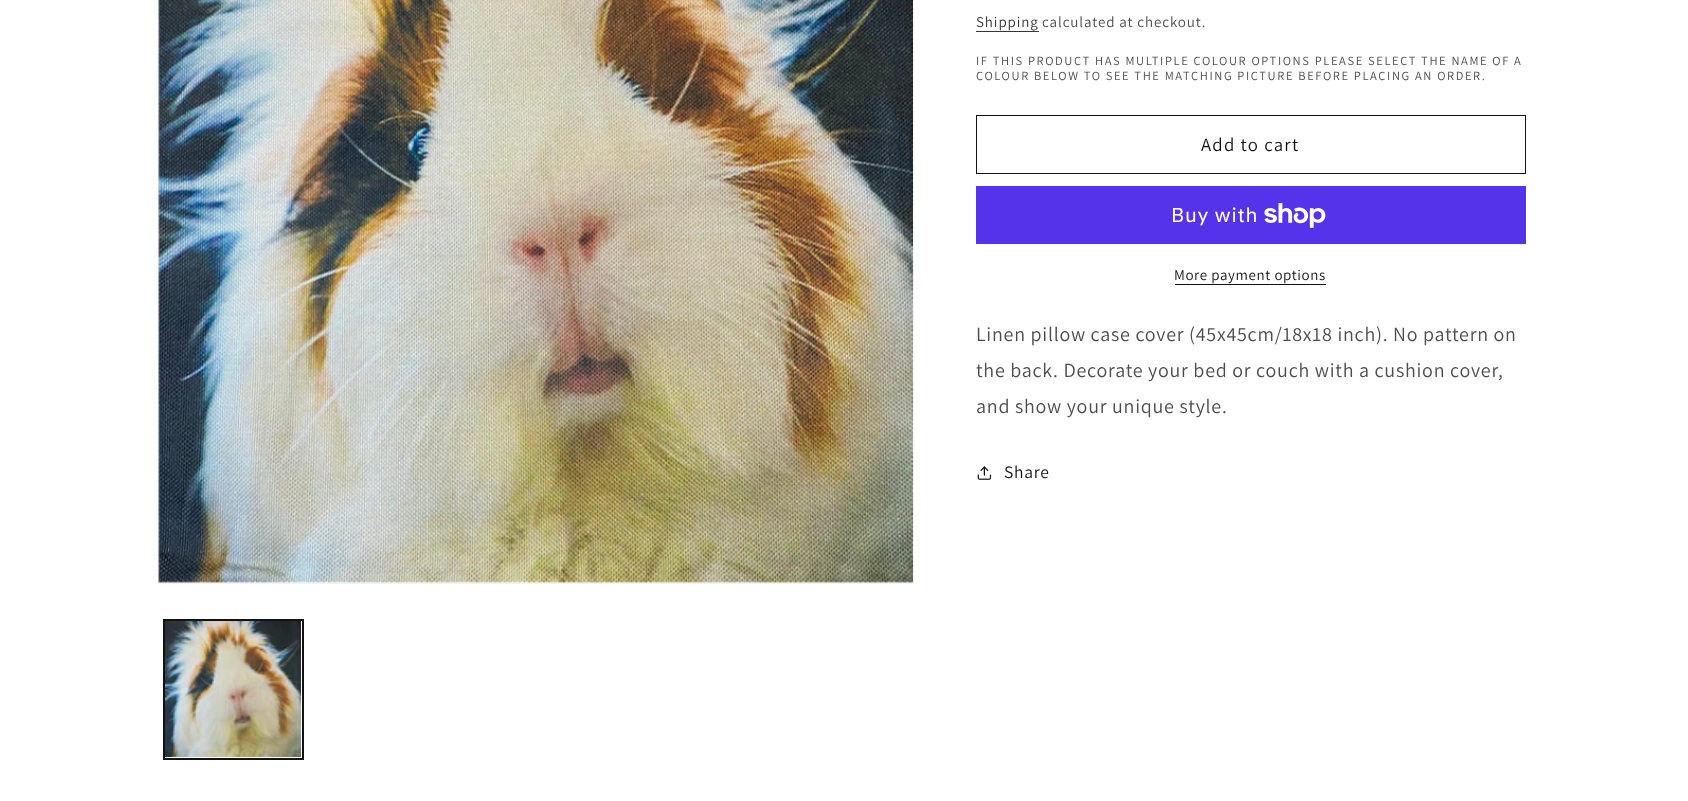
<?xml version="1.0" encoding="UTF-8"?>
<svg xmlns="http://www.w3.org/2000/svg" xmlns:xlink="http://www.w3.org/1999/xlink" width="1688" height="801">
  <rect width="100%" height="100%" fill="#ffffff" />
  <rect x="158.5" y="-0.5" width="755" height="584" fill="none" stroke="#f3f3f3" />
  <image x="158" y="0" width="755" height="583" xlink:href="image1.png" />
  <rect x="163.5" y="619.5" width="140" height="140" fill="none" stroke="#121212" />
  <rect x="164.5" y="620.5" width="138" height="138" fill="none" stroke="#121212" />
  <image x="165" y="621" width="136" height="136" xlink:href="image2.png" />
  <rect x="976" y="31" width="63" height="1" fill="#363636" />
  <rect x="976.5" y="115.5" width="549" height="58" fill="none" stroke="#121212" />
  <rect x="976" y="186" width="550" height="58" fill="#5433eb" />
  <image x="1264" y="203" width="62" height="25" xlink:href="image3.png" />
  <rect x="1175" y="284" width="151" height="1" fill="#121212" />
  <image x="977" y="466" width="15" height="14" xlink:href="image4.png" />
  <text x="976" y="27" style="font-family: Assistant; font-size: 15px; letter-spacing: 0.9px; fill: #363636">Shipping</text>
  <text x="1042" y="27" style="font-family: Assistant; font-size: 15px; letter-spacing: 0.9px; fill: #4d4d4d">calculated at checkout.</text>
  <text x="976" y="65" style="font-family: Assistant; font-size: 12.5px; letter-spacing: 1.62px; fill: #4d4d4d">IF THIS PRODUCT HAS MULTIPLE COLOUR OPTIONS PLEASE SELECT THE NAME OF A</text>
  <text x="976" y="80" style="font-family: Assistant; font-size: 12.5px; letter-spacing: 1.62px; fill: #4d4d4d">COLOUR BELOW TO SEE THE MATCHING PICTURE BEFORE PLACING AN ORDER.</text>
  <text x="1201" y="151" style="font-family: Assistant; font-size: 18.75px; letter-spacing: 1.25px; fill: #121212">Add to cart</text>
  <text x="1171" y="222" style="font-family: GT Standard; font-size: 20px; letter-spacing: 0.75px; fill: #ffffff">Buy with</text>
  <text x="1174" y="280" style="font-family: Assistant; font-size: 15px; letter-spacing: 0.6px; fill: #121212">More payment options</text>
  <text x="976" y="341" style="font-family: Assistant; font-size: 20px; letter-spacing: 0.75px; fill: #4d4d4d">Linen pillow case cover (45x45cm/18x18 inch). No pattern on</text>
  <text x="976" y="377" style="font-family: Assistant; font-size: 20px; letter-spacing: 0.75px; fill: #4d4d4d">the back. Decorate your bed or couch with a cushion cover,</text>
  <text x="976" y="413" style="font-family: Assistant; font-size: 20px; letter-spacing: 0.75px; fill: #4d4d4d">and show your unique style.</text>
  <text x="1004" y="478" style="font-family: Assistant; font-size: 17.5px; letter-spacing: 0.75px; fill: #121212">Share</text>
</svg>
